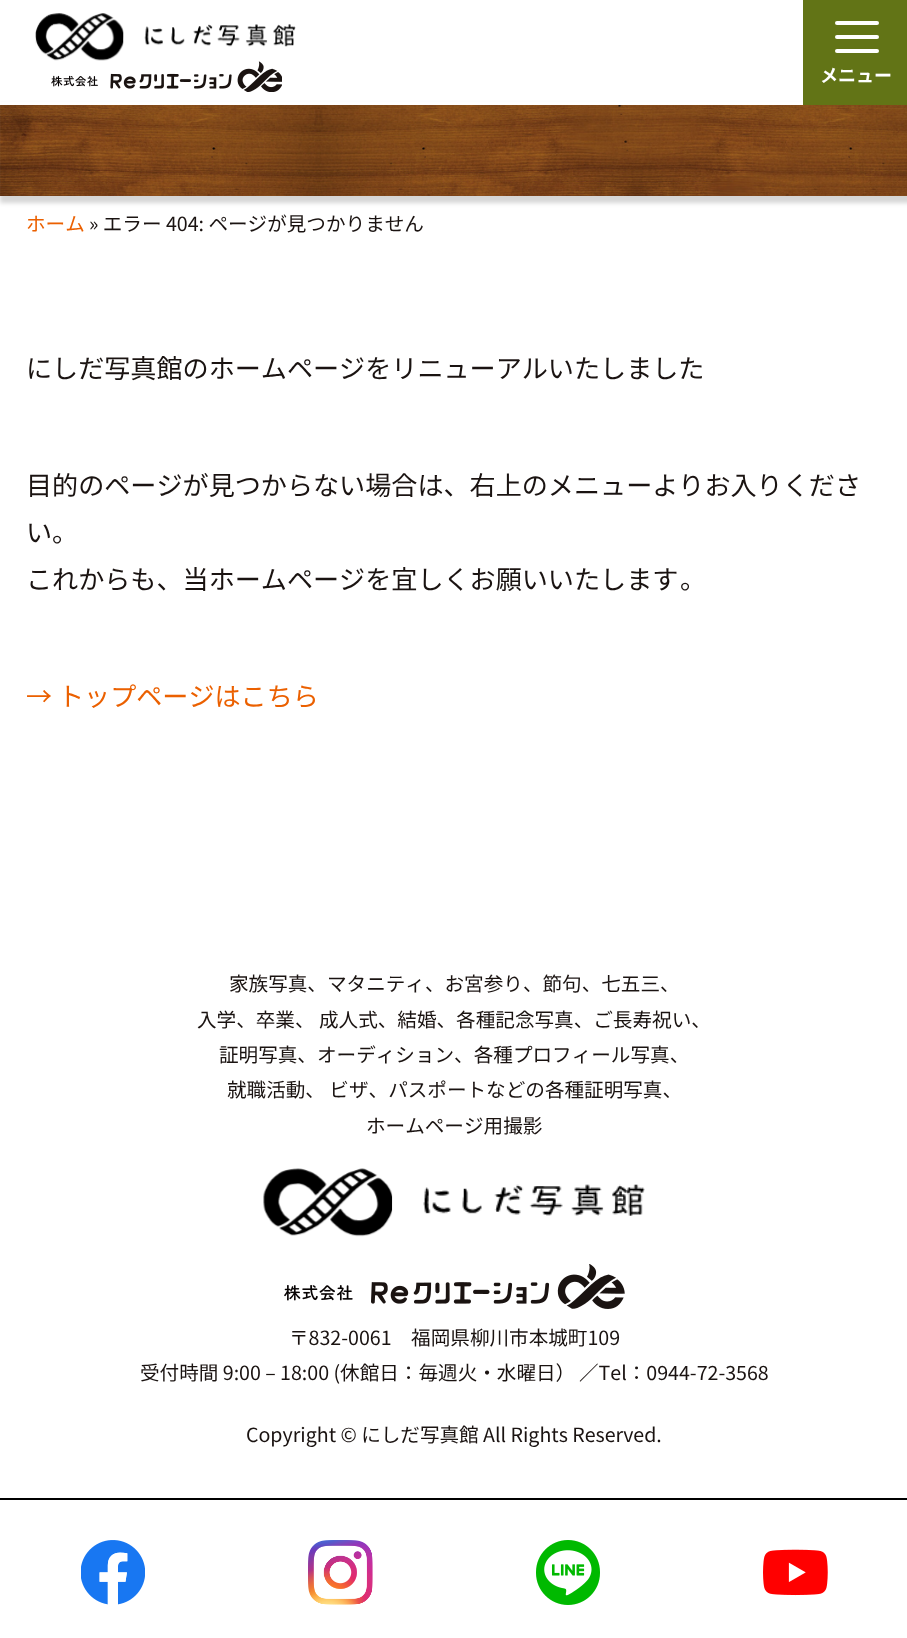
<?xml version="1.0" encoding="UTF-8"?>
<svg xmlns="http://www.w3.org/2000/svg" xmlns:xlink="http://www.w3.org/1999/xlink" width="907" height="1638">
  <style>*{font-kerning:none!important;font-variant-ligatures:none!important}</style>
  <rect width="100%" height="100%" fill="#ffffff" />
  <rect y="105" width="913" height="98" fill="#000000" fill-opacity="0.16" filter="blur(2px)" />
  <rect y="102" width="803" height="3" fill="#ffffff" />
  <image x="35" y="13" width="261" height="48" xlink:href="image1.png" />
  <image x="51" y="61" width="231" height="31" xlink:href="image2.png" />
  <rect x="803" width="104" height="105" fill="#627416" />
  <rect x="835" y="21" width="44" height="4" rx="2" fill="#ffffff" />
  <rect x="835" y="35" width="44" height="4" rx="2" fill="#ffffff" />
  <rect x="835" y="49" width="44" height="4" rx="2" fill="#ffffff" />
  <image x="0" y="105" width="907" height="91" xlink:href="image3.png" />
  <image x="263" y="1168" width="382" height="69" xlink:href="image4.png" />
  <image x="284" y="1264" width="341" height="45" xlink:href="image5.png" />
  <rect y="1498" width="907" height="2" fill="#000000" />
  <image x="81" y="1540" width="64" height="65" xlink:href="image6.png" />
  <image x="308" y="1540" width="65" height="65" xlink:href="image7.png" />
  <image x="536" y="1540" width="64" height="65" xlink:href="image8.png" />
  <image x="763" y="1549" width="65" height="47" xlink:href="image9.png" />
  <text x="820" y="82" style="font-family: Noto Sans JP; font-size: 18px; font-weight: bold; fill: #ffffff">メニュー</text>
  <text x="26" y="231" style="font-family: Noto Sans JP; font-size: 19.6px; fill: #eb6000">ホーム</text>
  <text x="89" y="231" style="font-family: Noto Sans JP; font-size: 19.6px; fill: #1a1311">» エラー 404: ページが見つかりません</text>
  <text x="26" y="378" style="font-family: Noto Sans JP; font-size: 26.1px; fill: #1a1311">にしだ写真館のホームページをリニューアルいたしました</text>
  <text x="26" y="495" style="font-family: Noto Sans JP; font-size: 26.1px; fill: #1a1311">目的のページが見つからない場合は、右上のメニューよりお入りくださ</text>
  <text x="26" y="542" style="font-family: Noto Sans JP; font-size: 26.1px; fill: #1a1311">い。</text>
  <text x="26" y="589" style="font-family: Noto Sans JP; font-size: 26.1px; fill: #1a1311">これからも、当ホームページを宜しくお願いいたします</text>
  <text x="680" y="589" style="font-family: Noto Sans JP; font-size: 26.1px; fill: #1a1311">。</text>
  <text x="26" y="706" style="font-family: Noto Sans JP; font-size: 26.1px; fill: #eb6000">→ トップページはこちら</text>
  <text x="229" y="991" style="font-family: Noto Sans JP; font-size: 19.6px; fill: #1a1311">家族写真、マタニティ、お宮参り、節句、七五三、</text>
  <text x="197" y="1027" style="font-family: Noto Sans JP; font-size: 19.6px; fill: #1a1311">入学、卒業、 成人式、結婚、各種記念写真、ご長寿祝い、</text>
  <text x="219" y="1062" style="font-family: Noto Sans JP; font-size: 19.6px; fill: #1a1311">証明写真、オーディション、各種プロフィール写真、</text>
  <text x="227" y="1097" style="font-family: Noto Sans JP; font-size: 19.6px; fill: #1a1311">就職活動、 ビザ、パスポートなどの各種証明写真、</text>
  <text x="366" y="1133" style="font-family: Noto Sans JP; font-size: 19.6px; fill: #1a1311">ホームページ用撮影</text>
  <text x="289" y="1345" style="font-family: Noto Sans JP; font-size: 19.6px; fill: #1a1311">〒832-0061  福岡県柳川市本城町109</text>
  <text x="140" y="1380" style="font-family: Noto Sans JP; font-size: 19.6px; fill: #1a1311">受付時間 9:00 – 18:00 (休館日：毎週火・水曜日）</text>
  <text x="579" y="1380" style="font-family: Noto Sans JP; font-size: 19.6px; fill: #1a1311">／Tel：0944-72-3568</text>
  <text x="246" y="1442" style="font-family: Noto Sans JP; font-size: 19.6px; fill: #1a1311">Copyright © にしだ写真館 All Rights Reserved.</text>
</svg>
